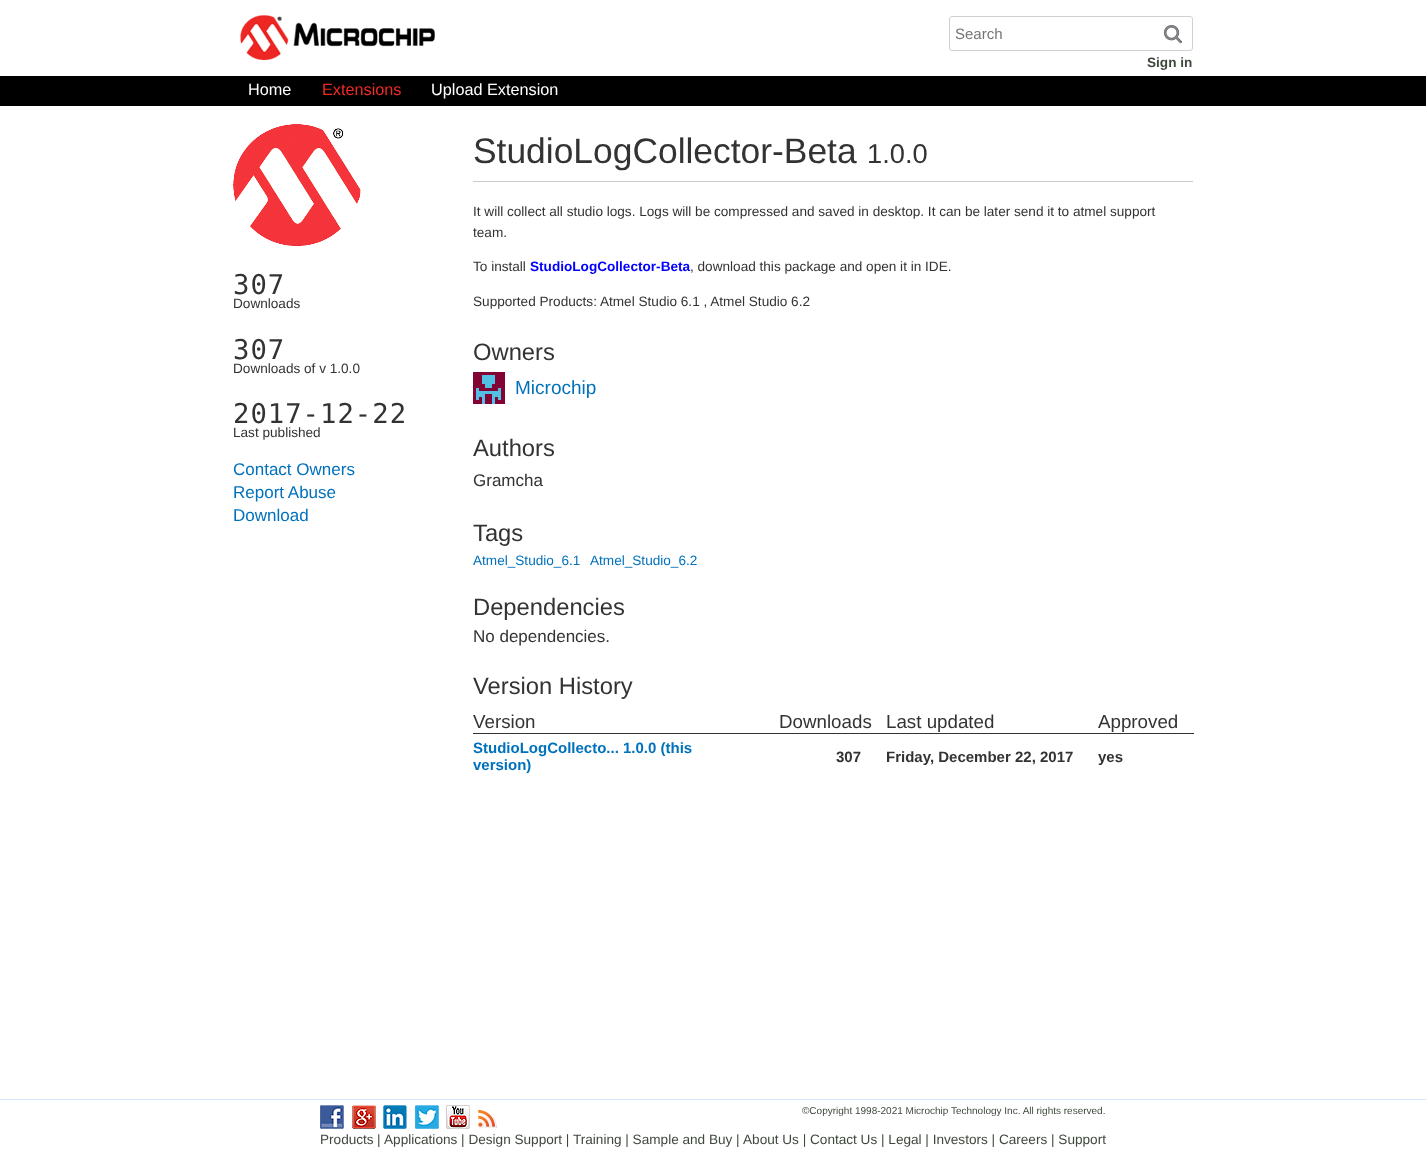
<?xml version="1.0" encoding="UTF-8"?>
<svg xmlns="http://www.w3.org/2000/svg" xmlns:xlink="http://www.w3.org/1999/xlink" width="1426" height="1167">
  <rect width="100%" height="100%" fill="#ffffff" />
  <rect y="76" width="1426" height="30" fill="#000000" />
  <image x="240" y="15" width="195" height="45" xlink:href="image1.png" />
  <rect x="949.5" y="16.5" width="243" height="34" rx="2.5" fill="none" stroke="#d1d1d1" />
  <image x="1163" y="25" width="19" height="19" xlink:href="image2.png" />
  <image x="233" y="124" width="128" height="122" xlink:href="image3.png" />
  <rect x="473" y="181" width="720" height="1" fill="#cccccc" />
  <image x="473" y="372" width="32" height="32" xlink:href="image4.png" />
  <rect x="473" y="733" width="721" height="1" fill="#333333" />
  <rect y="1099" width="1426" height="1" fill="#d3e7fe" />
  <image x="320" y="1105" width="24" height="24" xlink:href="image5.png" />
  <image x="352" y="1105" width="24" height="24" xlink:href="image6.png" />
  <image x="383" y="1105" width="24" height="24" xlink:href="image7.png" />
  <image x="415" y="1105" width="24" height="24" xlink:href="image8.png" />
  <image x="446" y="1105" width="24" height="24" xlink:href="image9.png" />
  <image x="478" y="1110" width="19" height="19" xlink:href="image10.png" />
  <text x="955" y="39" style="font-family: Liberation Sans; font-size: 15px; fill: #757575">Search</text>
  <text x="1147" y="67" style="font-family: Liberation Sans; font-size: 13.6px; font-weight: bold; fill: #3e483c">Sign in</text>
  <text x="248" y="95" style="font-family: Liberation Sans; font-size: 16.25px; fill: #ffffff">Home</text>
  <text x="322" y="95" style="font-family: Liberation Sans; font-size: 16.25px; fill: #ee2a24">Extensions</text>
  <text x="431" y="95" style="font-family: Liberation Sans; font-size: 16.25px; fill: #ffffff">Upload Extension</text>
  <text x="233" y="294" style="font-family: DejaVu Sans Mono; font-size: 27.25px; letter-spacing: 1px; fill: #333333">307</text>
  <text x="233" y="308" style="font-family: Liberation Sans; font-size: 13.6px; fill: #333333">Downloads</text>
  <text x="233" y="359" style="font-family: DejaVu Sans Mono; font-size: 27.25px; letter-spacing: 1px; fill: #333333">307</text>
  <text x="233" y="373" style="font-family: Liberation Sans; font-size: 13.6px; fill: #333333">Downloads of v 1.0.0</text>
  <text x="233" y="423" style="font-family: DejaVu Sans Mono; font-size: 27.25px; letter-spacing: 1px; fill: #333333">2017-12-22</text>
  <text x="233" y="437" style="font-family: Liberation Sans; font-size: 13.6px; fill: #333333">Last published</text>
  <text x="233" y="475" style="font-family: Liberation Sans; font-size: 17px; fill: #0071bc">Contact Owners</text>
  <text x="233" y="498" style="font-family: Liberation Sans; font-size: 17px; fill: #0071bc">Report Abuse</text>
  <text x="233" y="521" style="font-family: Liberation Sans; font-size: 17px; fill: #0071bc">Download</text>
  <text x="473" y="163" style="font-family: Liberation Sans; font-size: 35.4px; fill: #333333">StudioLogCollector-Beta</text>
  <text x="867" y="163" style="font-family: Liberation Sans; font-size: 27.25px; fill: #333333">1.0.0</text>
  <text x="473" y="216" style="font-family: Liberation Sans; font-size: 13.6px; fill: #333333">It will collect all studio logs. Logs will be compressed and saved in desktop. It can be later send it to atmel support</text>
  <text x="473" y="237" style="font-family: Liberation Sans; font-size: 13.6px; fill: #333333">team.</text>
  <text x="473" y="271" style="font-family: Liberation Sans; font-size: 13.6px; fill: #333333">To install</text>
  <text x="530" y="271" style="font-family: Liberation Sans; font-size: 13.6px; font-weight: bold; fill: #0000ff">StudioLogCollector-Beta</text>
  <text x="690" y="271" style="font-family: Liberation Sans; font-size: 13.6px; fill: #333333">, download this package and open it in IDE.</text>
  <text x="473" y="306" style="font-family: Liberation Sans; font-size: 13.6px; fill: #333333">Supported Products: Atmel Studio 6.1 , Atmel Studio 6.2</text>
  <text x="473" y="360" style="font-family: Liberation Sans; font-size: 23.75px; fill: #333333">Owners</text>
  <text x="515" y="394" style="font-family: Liberation Sans; font-size: 19px; fill: #0071bc">Microchip</text>
  <text x="473" y="456" style="font-family: Liberation Sans; font-size: 23.75px; fill: #333333">Authors</text>
  <text x="473" y="486" style="font-family: Liberation Sans; font-size: 17px; fill: #333333">Gramcha</text>
  <text x="473" y="541" style="font-family: Liberation Sans; font-size: 23.75px; fill: #333333">Tags</text>
  <text x="473" y="565" style="font-family: Liberation Sans; font-size: 13.6px; fill: #0071bc">Atmel_Studio_6.1</text>
  <text x="590" y="565" style="font-family: Liberation Sans; font-size: 13.6px; fill: #0071bc">Atmel_Studio_6.2</text>
  <text x="473" y="615" style="font-family: Liberation Sans; font-size: 23.75px; fill: #333333">Dependencies</text>
  <text x="473" y="642" style="font-family: Liberation Sans; font-size: 17px; fill: #333333">No dependencies.</text>
  <text x="473" y="694" style="font-family: Liberation Sans; font-size: 23.75px; fill: #333333">Version History</text>
  <text x="473" y="728" style="font-family: Liberation Sans; font-size: 18.75px; fill: #333333">Version</text>
  <text x="779" y="728" style="font-family: Liberation Sans; font-size: 18.75px; fill: #333333">Downloads</text>
  <text x="886" y="728" style="font-family: Liberation Sans; font-size: 18.75px; fill: #333333">Last updated</text>
  <text x="1098" y="728" style="font-family: Liberation Sans; font-size: 18.75px; fill: #333333">Approved</text>
  <text x="473" y="753" style="font-family: Liberation Sans; font-size: 15px; font-weight: bold; fill: #0071bc">StudioLogCollecto... 1.0.0 (this</text>
  <text x="473" y="770" style="font-family: Liberation Sans; font-size: 15px; font-weight: bold; fill: #0071bc">version)</text>
  <text x="836" y="762" style="font-family: Liberation Sans; font-size: 15px; font-weight: bold; fill: #333333">307</text>
  <text x="886" y="762" style="font-family: Liberation Sans; font-size: 15px; font-weight: bold; fill: #333333">Friday, December 22, 2017</text>
  <text x="1098" y="762" style="font-family: Liberation Sans; font-size: 15px; font-weight: bold; fill: #333333">yes</text>
  <text x="802" y="1114" style="font-family: Liberation Sans; font-size: 10px; fill: #3e483c">©Copyright 1998-2021 Microchip Technology Inc. All rights reserved.</text>
  <text x="320" y="1144" style="font-family: Liberation Sans; font-size: 13.6px; fill: #3e483c">Products</text>
  <text x="377" y="1144" style="font-family: Liberation Sans; font-size: 13.6px; fill: #3e483c">|</text>
  <text x="384" y="1144" style="font-family: Liberation Sans; font-size: 13.6px; fill: #3e483c">Applications | Design Support | Training | Sample and Buy</text>
  <text x="736" y="1144" style="font-family: Liberation Sans; font-size: 13.6px; fill: #3e483c">|</text>
  <text x="743" y="1144" style="font-family: Liberation Sans; font-size: 13.6px; fill: #3e483c">About Us | Contact Us | Legal | Investors | Careers | Support</text>
</svg>
